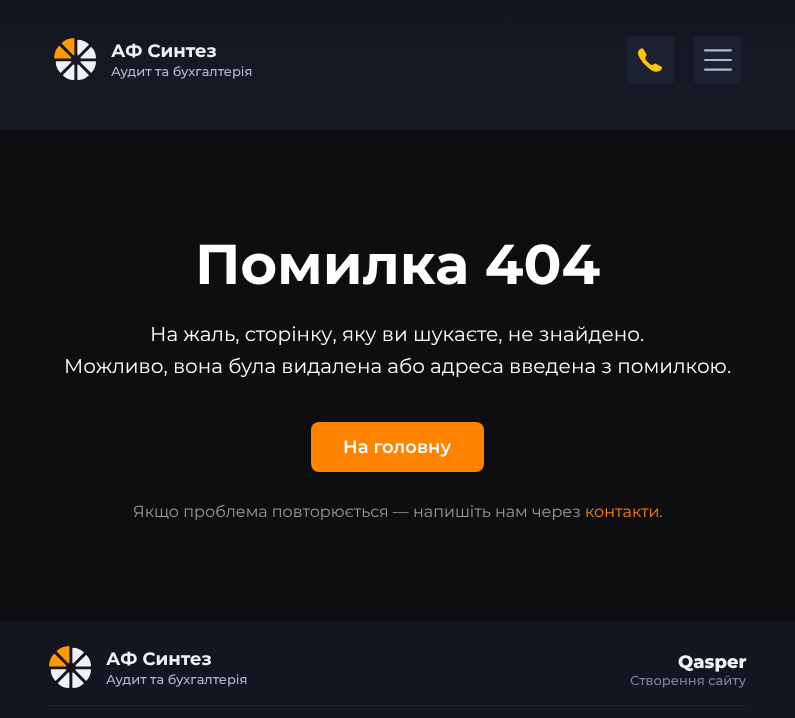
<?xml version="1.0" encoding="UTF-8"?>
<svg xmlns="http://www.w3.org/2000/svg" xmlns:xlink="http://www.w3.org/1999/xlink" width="795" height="718">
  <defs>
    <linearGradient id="g1" gradientUnits="userSpaceOnUse" x1="398" y1="0" x2="398" y2="120"><stop offset="0" stop-color="#131620" /><stop offset="1" stop-color="#151924" /></linearGradient>
  </defs>
  <rect width="100%" height="100%" fill="#151924" />
  <rect width="795" height="45" fill="url(#g1)" />
  <image x="54" y="38" width="42" height="42" xlink:href="image1.png" />
  <rect x="626" y="36" width="48" height="48" rx="4" fill="#1b212f" />
  <image x="638" y="48" width="24" height="24" xlink:href="image2.png" />
  <rect x="694" y="36" width="48" height="48" rx="4" fill="#1b212f" />
  <image x="704" y="49" width="28" height="22" xlink:href="image3.png" />
  <rect y="130" width="795" height="491" fill="#0e0e11" />
  <rect x="311" y="422" width="173" height="50" rx="8" fill="#ff8200" />
  <rect y="621" width="795" height="97" fill="#131620" />
  <image x="49" y="646" width="42" height="42" xlink:href="image4.png" />
  <rect x="49" y="705" width="698" height="1" fill="#1c2230" />
  <text x="111" y="57" style="font-family: Montserrat; font-size: 18px; font-weight: bold; fill: #eff1f6">АФ Синтез</text>
  <text x="111" y="76" style="font-family: Montserrat; font-size: 13px; font-weight: 500; fill: #afb8d0">Аудит та бухгалтерія</text>
  <text x="195" y="284" style="font-family: Montserrat; font-size: 56px; font-weight: bold; fill: #ffffff">Помилка 404</text>
  <text x="150" y="341" style="font-family: Montserrat; font-size: 20px; fill: #ffffff">На жаль, сторінку, яку ви шукаєте, не знайдено.</text>
  <text x="64" y="373" style="font-family: Montserrat; font-size: 20px; fill: #ffffff">Можливо, вона була видалена або адреса введена з помилкою.</text>
  <text x="343" y="453" style="font-family: Montserrat; font-size: 18px; font-weight: 600; fill: #ffffff">На головну</text>
  <text x="133" y="517" style="font-family: Montserrat; font-size: 16px; fill: #999999">Якщо проблема повторюється — напишіть нам через</text>
  <text x="585" y="517" style="font-family: Montserrat; font-size: 16px; fill: #ff8200">контакти</text>
  <text x="659" y="517" style="font-family: Montserrat; font-size: 16px; fill: #999999">.</text>
  <text x="106" y="665" style="font-family: Montserrat; font-size: 18px; font-weight: bold; fill: #eff1f6">АФ Синтез</text>
  <text x="106" y="684" style="font-family: Montserrat; font-size: 13px; font-weight: 500; fill: #afb8d0">Аудит та бухгалтерія</text>
  <text x="678" y="668" style="font-family: Montserrat; font-size: 18px; font-weight: 800; fill: #eff1f6">Qasper</text>
  <text x="630" y="685" style="font-family: Montserrat; font-size: 13px; font-weight: 500; fill: #79849f">Створення сайту</text>
</svg>
